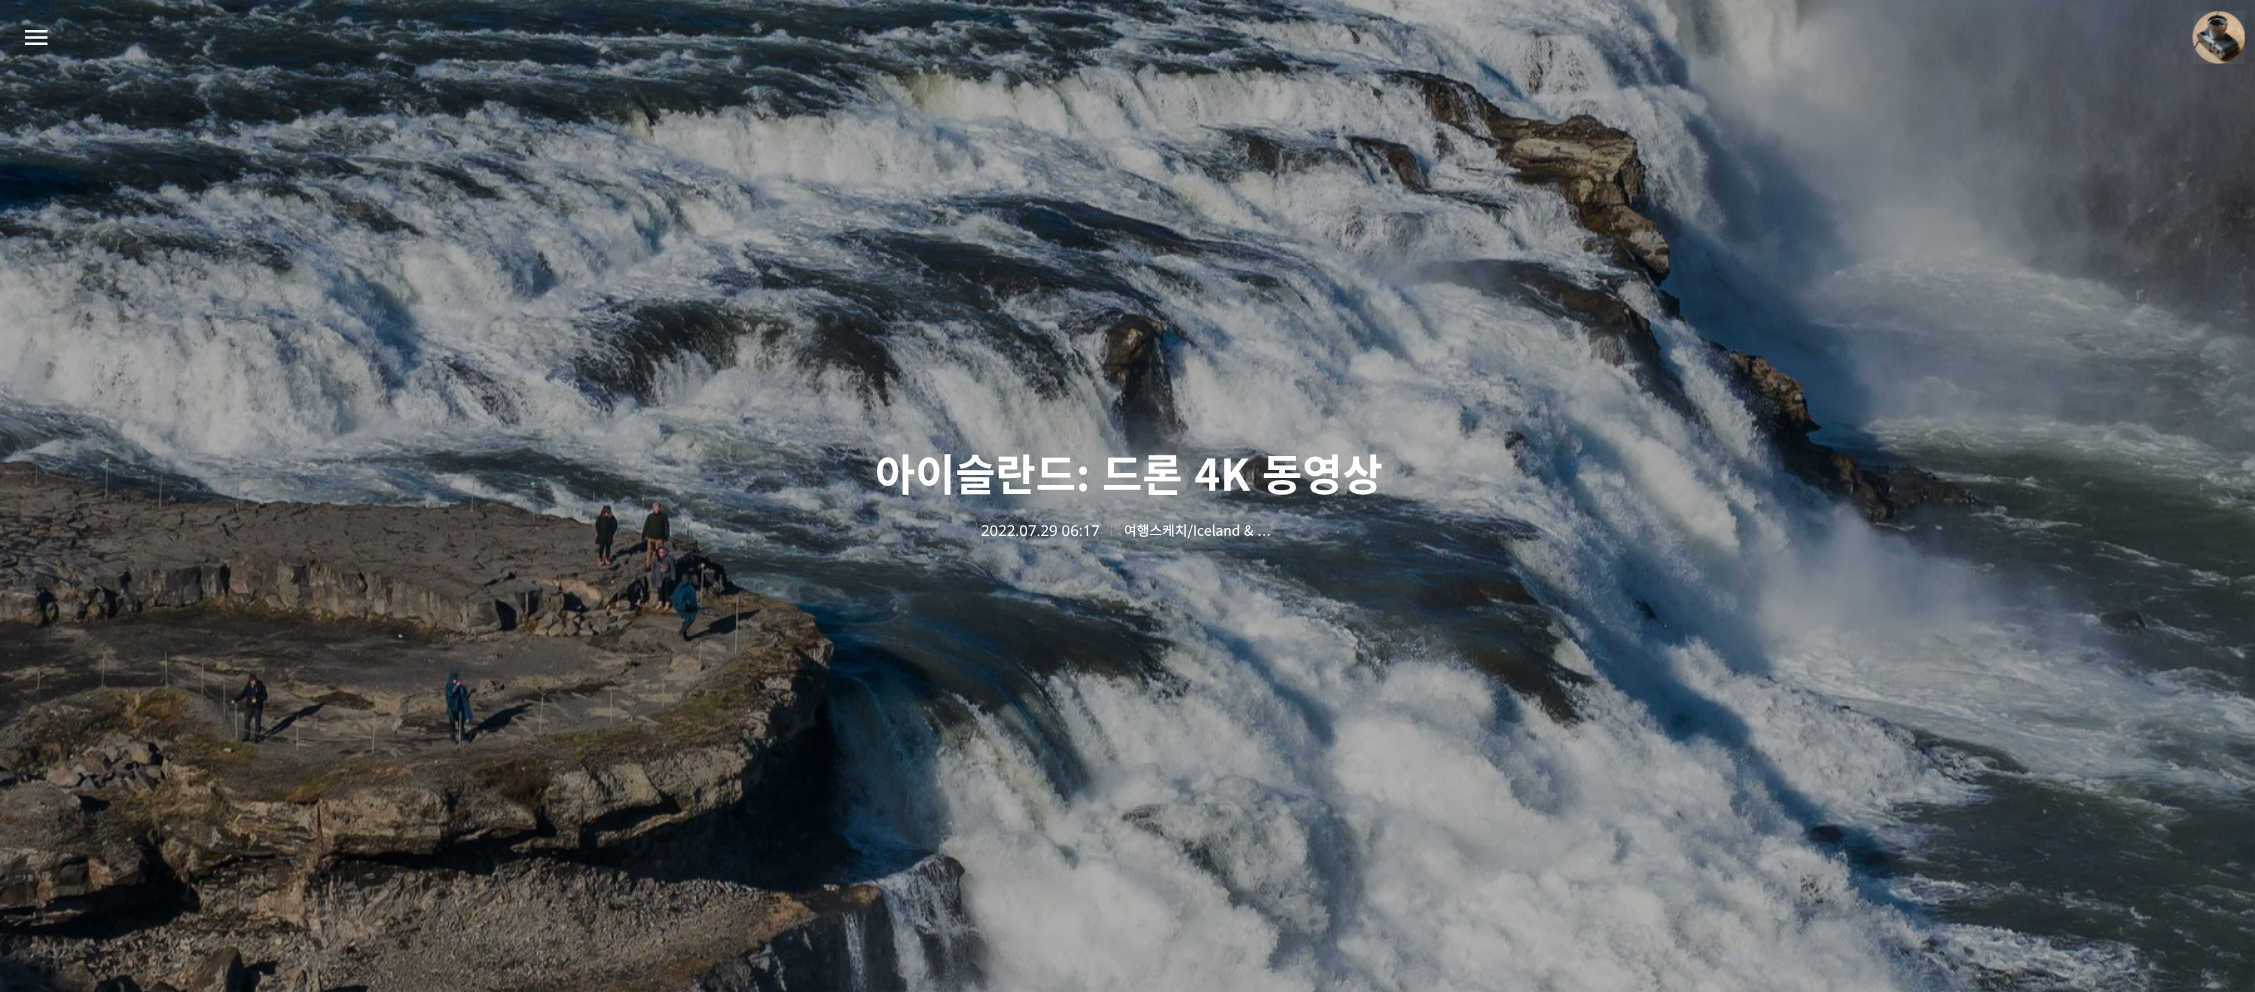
<?xml version="1.0" encoding="UTF-8"?>
<svg xmlns="http://www.w3.org/2000/svg" xmlns:xlink="http://www.w3.org/1999/xlink" width="2255" height="992">
  <rect width="100%" height="100%" fill="#ffffff" />
  <image x="0" y="0" width="2255" height="992" xlink:href="image3.png" />
  <image x="0" y="0" width="2255" height="992" xlink:href="image4.png" />
  <image x="0" y="0" width="2255" height="992" xlink:href="image5.png" />
  <image x="25" y="30" width="23" height="15" xlink:href="image1.png" />
  <rect x="2193" y="11" width="52" height="53" fill="#ffffff" fill-opacity="0.05" />
  <image x="2192" y="11" width="53" height="53" xlink:href="image2.png" />
  <rect x="1111" y="526" width="1" height="10" fill="#ffffff" fill-opacity="0.2" />
  <text x="1066" y="59" style="font-family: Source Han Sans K; font-size: 15px; fill: #4f5b64">Nearer,</text>
  <text x="2135" y="301" style="font-family: Source Han Sans K; font-size: 21px; font-weight: bold; fill: #6b7277">r</text>
  <text x="875" y="492" style="font-family: Source Han Sans K; font-size: 47.5px; font-weight: bold; fill: #ffffff">아이슬란드: 드론 4K 동영상</text>
  <text x="981" y="536" style="font-family: Noto Sans; font-size: 15px; fill: #ffffff">2022.07.29 06:17</text>
  <text x="1124" y="536" style="font-family: Source Han Sans K; font-size: 15px; fill: #ffffff">여행스케치/Iceland &amp; …</text>
</svg>
